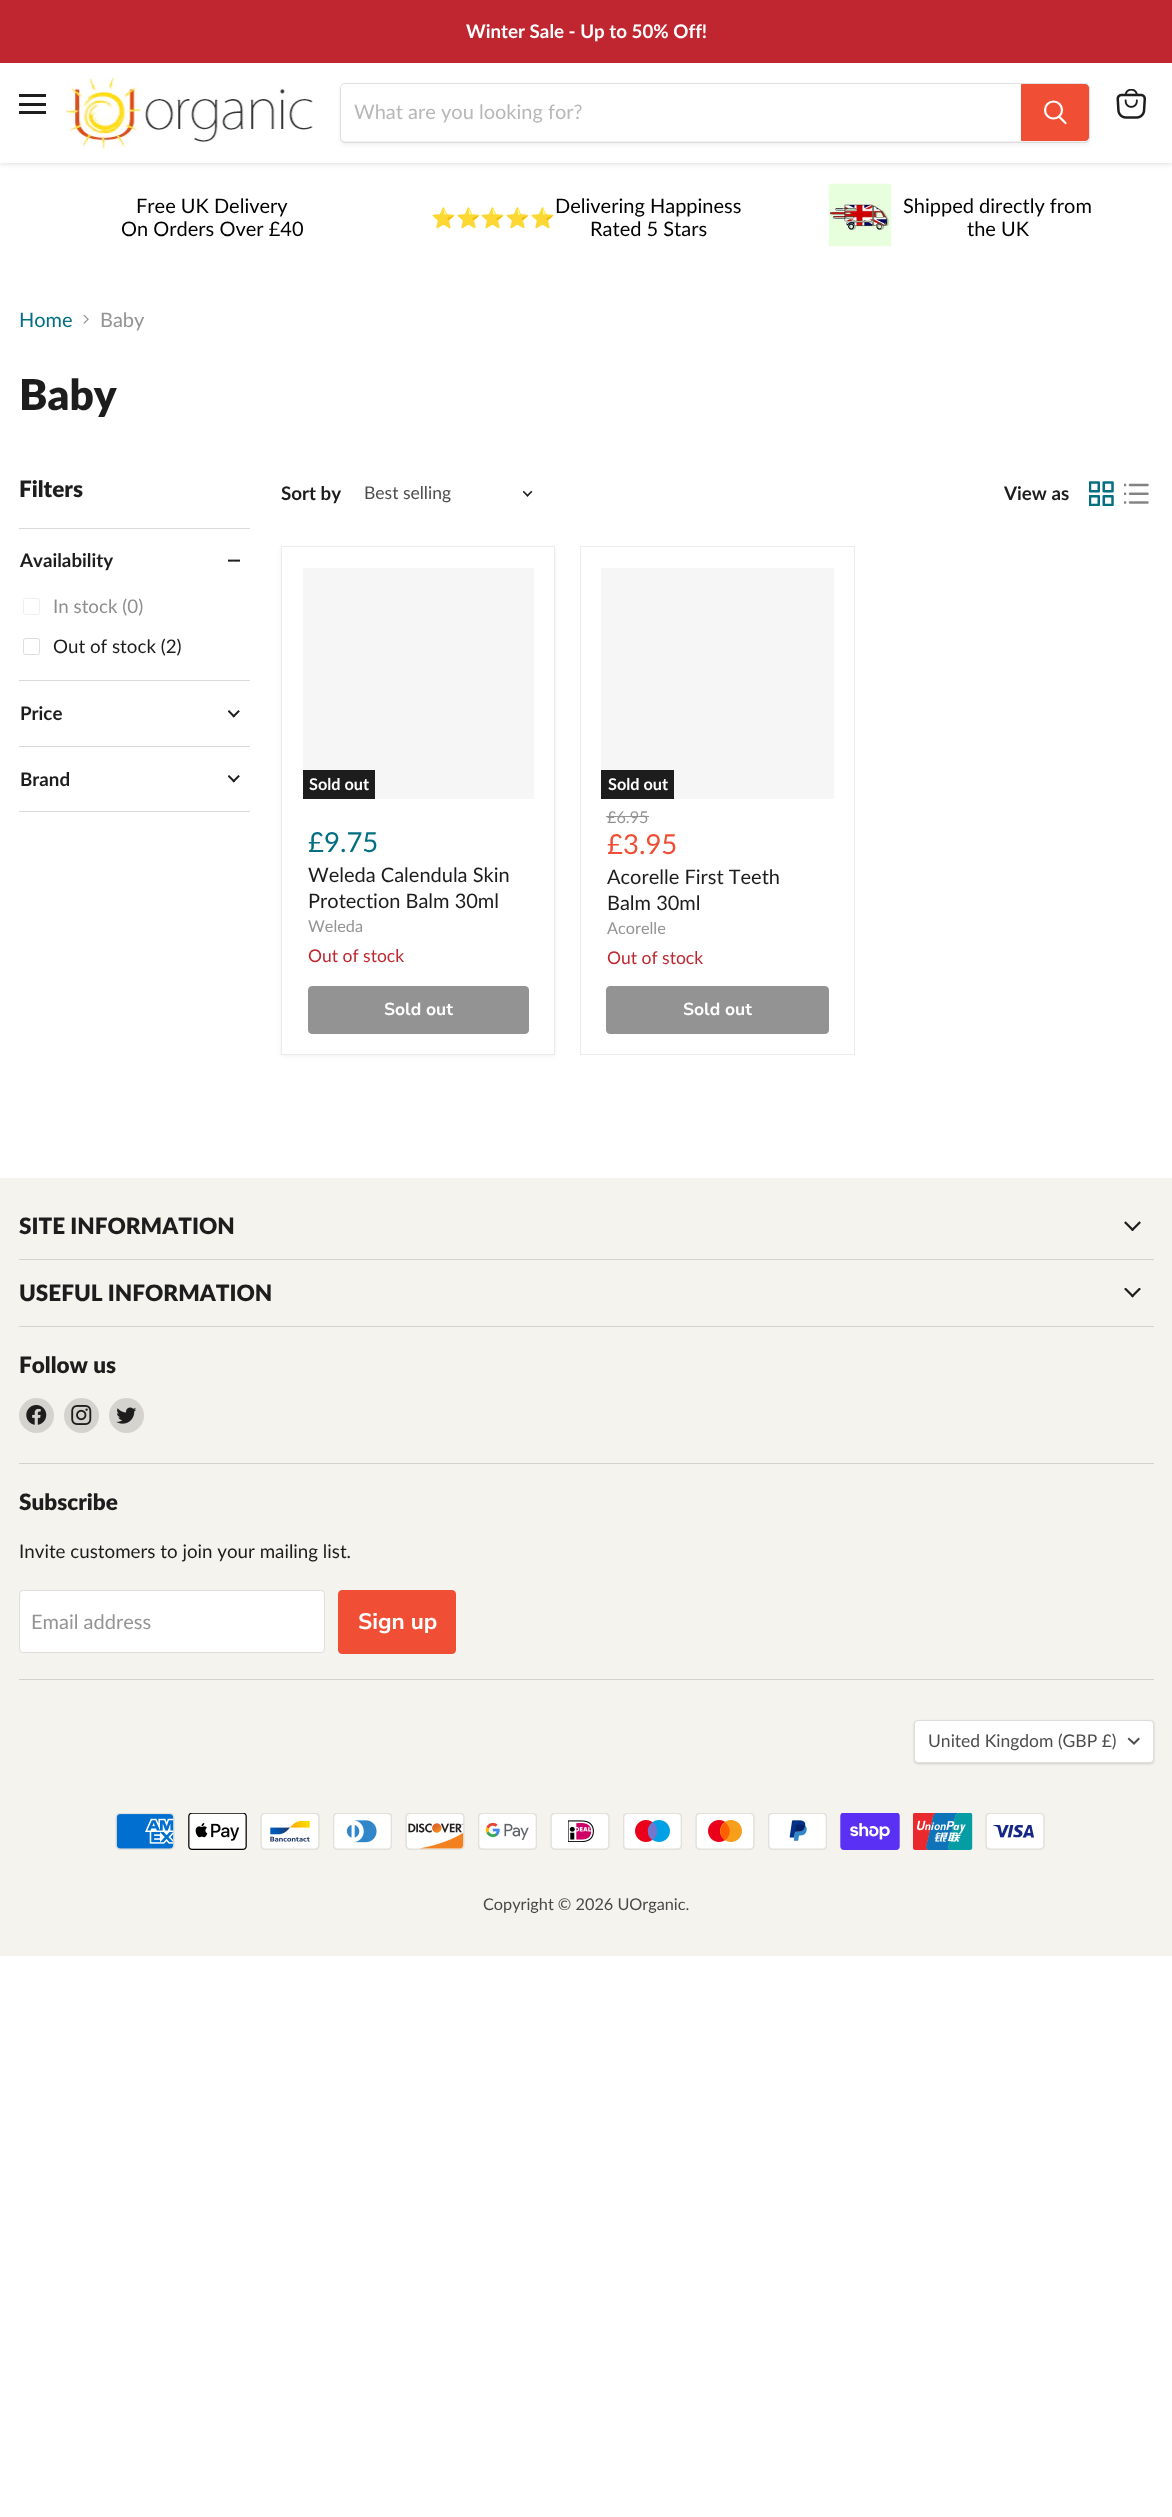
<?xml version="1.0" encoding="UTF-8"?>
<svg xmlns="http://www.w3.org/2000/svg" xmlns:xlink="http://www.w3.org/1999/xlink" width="1172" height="2517">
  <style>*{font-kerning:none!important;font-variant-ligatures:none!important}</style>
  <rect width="100%" height="100%" fill="#ffffff" />
  <rect y="64" width="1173" height="100" fill="#808080" fill-opacity="0.25" filter="blur(2.5px)" />
  <rect width="1172" height="63" fill="#bf262f" />
  <rect y="63" width="1172" height="100" fill="#ffffff" />
  <rect x="19" y="94" width="27" height="3" fill="#1d1d1d" />
  <rect x="19" y="103" width="27" height="3" fill="#1d1d1d" />
  <rect x="19" y="111" width="27" height="3" fill="#1d1d1d" />
  <image x="66" y="75" width="247" height="75" xlink:href="image1.png" />
  <rect x="340" y="85" width="750" height="60" rx="5" fill="#808080" fill-opacity="0.11" filter="blur(2px)" />
  <rect x="340.5" y="83.5" width="749" height="59" rx="4.5" fill="none" stroke="#808080" stroke-opacity="0.2" />
  <path d="M 345 84 h 676 v 57 h -676 c -2 0 -4 -2 -4 -4 v -49 c 0 -2 2 -4 4 -4 z" fill="#ffffff" />
  <path d="M 1021.5 84.5 h 63.5 c 2 0 3.5 1.5 3.5 3.5 v 49 c 0 2 -1.5 3.5 -3.5 3.5 h -63.5 z" fill="#f04f36" stroke="#f04f36" />
  <path d="M 1065.5 123 l -6 -6" fill="none" stroke="#ffffff" stroke-width="2.2" stroke-linecap="round" />
  <circle cx="1053.5" cy="110" r="8.5" fill="none" stroke="#ffffff" stroke-width="2.2" />
  <image x="1116" y="89" width="30" height="30" xlink:href="image2.png" />
  <image x="828" y="183" width="64" height="64" xlink:href="image3.png" />
  <image x="83" y="314" width="6" height="10" xlink:href="image4.png" />
  <rect x="19" y="528" width="231" height="1" fill="#d9d9d9" />
  <image x="228" y="559" width="12" height="3" xlink:href="image5.png" />
  <rect x="23.5" y="598.5" width="16" height="16" rx="2" fill="none" stroke="#eeeeee" />
  <rect x="23.5" y="638.5" width="16" height="16" rx="2" fill="none" stroke="#dddddd" />
  <rect x="19" y="680" width="231" height="1" fill="#d9d9d9" />
  <image x="228" y="710" width="12" height="8" xlink:href="image6.png" />
  <rect x="19" y="746" width="231" height="1" fill="#d9d9d9" />
  <rect x="19" y="811" width="231" height="1" fill="#d9d9d9" />
  <image x="228" y="775" width="12" height="8" xlink:href="image7.png" />
  <image x="523" y="490" width="10" height="7" xlink:href="image8.png" />
  <image x="1089" y="481" width="25" height="25" xlink:href="image9.png" />
  <image x="1124" y="483" width="25" height="21" xlink:href="image10.png" />
  <rect x="281" y="548" width="274" height="508" fill="#808080" fill-opacity="0.11" filter="blur(2.5px)" />
  <rect x="281.5" y="546.5" width="273" height="508" fill="#ffffff" stroke="#ebebeb" />
  <rect x="303" y="568" width="231" height="231" fill="#f6f6f6" />
  <rect x="303" y="770" width="72" height="29" fill="#1d1d1d" />
  <rect x="308.5" y="986.5" width="220" height="47" rx="3.5" fill="#939393" stroke="#939393" />
  <rect x="580.5" y="546.5" width="274" height="508" fill="none" stroke="#ebebeb" />
  <rect x="601" y="568" width="233" height="231" fill="#f6f6f6" />
  <rect x="601" y="770" width="73" height="29" fill="#1d1d1d" />
  <rect x="606" y="816" width="43" height="1" fill="#949494" />
  <rect x="606.5" y="986.5" width="222" height="47" rx="3.5" fill="#939393" stroke="#939393" />
  <rect y="1178" width="1172" height="778" fill="#f5f3ed" />
  <rect x="19" y="1259" width="1135" height="1" fill="#d5d3ce" />
  <image x="1124" y="1221" width="17" height="10" xlink:href="image11.png" />
  <rect x="19" y="1326" width="1135" height="1" fill="#d5d3ce" />
  <image x="1124" y="1288" width="17" height="10" xlink:href="image12.png" />
  <rect x="19" y="1463" width="1135" height="1" fill="#d5d3ce" />
  <circle cx="36.5" cy="1415.5" r="17.5" fill="#d5d3ce" />
  <image x="26" y="1405" width="21" height="20" xlink:href="image13.png" />
  <circle cx="81.5" cy="1415.5" r="17.5" fill="#d5d3ce" />
  <image x="71" y="1405" width="21" height="20" xlink:href="image14.png" />
  <circle cx="126.5" cy="1415.5" r="17.5" fill="#d5d3ce" />
  <image x="116" y="1407" width="21" height="17" xlink:href="image15.png" />
  <rect x="19" y="1679" width="1135" height="1" fill="#d5d3ce" />
  <rect x="19.5" y="1590.5" width="305" height="62" rx="3.5" fill="#ffffff" stroke="#dddddd" />
  <rect x="338.5" y="1590.5" width="117" height="63" rx="3.5" fill="#f04f36" stroke="#f04f36" />
  <rect x="914" y="1721" width="240" height="43" rx="4" fill="#000000" fill-opacity="0.15" filter="blur(1px)" />
  <rect x="914.5" y="1720.5" width="239" height="42" rx="3.5" fill="#ffffff" stroke="#dddddd" />
  <path d="M 1134 1743.5 l 4.5 -4.5 m -4.5 4.5 l -5 -4.5" fill="none" stroke="#4d4d4d" stroke-width="2" stroke-linecap="square" />
  <image x="115" y="1813" width="60" height="37" xlink:href="image16.png" />
  <image x="188" y="1813" width="59" height="37" xlink:href="image17.png" />
  <image x="260" y="1813" width="60" height="37" xlink:href="image18.png" />
  <image x="333" y="1813" width="59" height="37" xlink:href="image19.png" />
  <image x="405" y="1813" width="60" height="37" xlink:href="image20.png" />
  <image x="478" y="1813" width="59" height="37" xlink:href="image21.png" />
  <image x="550" y="1813" width="60" height="37" xlink:href="image22.png" />
  <image x="623" y="1813" width="59" height="37" xlink:href="image23.png" />
  <image x="695" y="1813" width="60" height="37" xlink:href="image24.png" />
  <image x="768" y="1813" width="59" height="37" xlink:href="image25.png" />
  <image x="840" y="1813" width="60" height="37" xlink:href="image26.png" />
  <image x="913" y="1813" width="60" height="37" xlink:href="image27.png" />
  <image x="985" y="1813" width="60" height="37" xlink:href="image28.png" />
  <text x="466" y="38" style="font-family: Lato; font-size: 18.75px; font-weight: bold; fill: #ffffff">Winter Sale - Up to 50% Off!</text>
  <text x="354" y="119" style="font-family: Lato; font-size: 20px; fill: #b8b8b8">What are you looking for?</text>
  <text x="136" y="213" style="font-family: Lato; font-size: 20px; fill: #000000">Free UK Delivery</text>
  <text x="121" y="236" style="font-family: Lato; font-size: 20px; fill: #000000">On Orders Over £40</text>
  <text x="431" y="225" style="font-family: Noto Color Emoji; font-size: 20px; fill: #1d1d1d">⭐⭐⭐⭐⭐</text>
  <text x="555" y="213" style="font-family: Lato; font-size: 20px; fill: #000000">Delivering Happiness</text>
  <text x="590" y="236" style="font-family: Lato; font-size: 20px; fill: #000000">Rated 5 Stars</text>
  <text x="903" y="213" style="font-family: Lato; font-size: 20px; fill: #000000">Shipped directly from</text>
  <text x="967" y="236" style="font-family: Lato; font-size: 20px; fill: #000000">the UK</text>
  <text x="19" y="327" style="font-family: Lato; font-size: 20px; fill: #046e82">Home</text>
  <text x="100" y="327" style="font-family: Lato; font-size: 20px; fill: #949494">Baby</text>
  <text x="19" y="410" style="font-family: Lato; font-size: 42.5px; font-weight: 800; fill: #1d1d1d">Baby</text>
  <text x="19" y="497" style="font-family: Lato; font-size: 22.5px; font-weight: 800; fill: #1d1d1d">Filters</text>
  <text x="20" y="567" style="font-family: Lato; font-size: 18.75px; font-weight: bold; fill: #1d1d1d">Availability</text>
  <text x="53" y="613" style="font-family: Lato; font-size: 18.75px; fill: #8e8e8e">In stock (0)</text>
  <text x="53" y="653" style="font-family: Lato; font-size: 18.75px; fill: #1d1d1d">Out of stock (2)</text>
  <text x="20" y="720" style="font-family: Lato; font-size: 18.75px; font-weight: bold; fill: #1d1d1d">Price</text>
  <text x="20" y="786" style="font-family: Lato; font-size: 18.75px; font-weight: bold; fill: #1d1d1d">Brand</text>
  <text x="281" y="500" style="font-family: Lato; font-size: 18.75px; font-weight: bold; fill: #1d1d1d">Sort by</text>
  <text x="364" y="499" style="font-family: Lato; font-size: 17.5px; fill: #4d4d4d">Best selling</text>
  <text x="1004" y="500" style="font-family: Lato; font-size: 18.75px; font-weight: bold; fill: #1d1d1d">View as</text>
  <text x="309" y="790" style="font-family: Lato; font-size: 16.25px; font-weight: bold; fill: #ffffff">Sold out</text>
  <text x="308" y="852" style="font-family: Lato; font-size: 27.5px; fill: #046e82">£9.75</text>
  <text x="308" y="882" style="font-family: Lato; font-size: 20px; fill: #1d1d1d">Weleda Calendula Skin</text>
  <text x="308" y="908" style="font-family: Lato; font-size: 20px; fill: #1d1d1d">Protection Balm 30ml</text>
  <text x="308" y="932" style="font-family: Lato; font-size: 16.25px; fill: #949494">Weleda</text>
  <text x="308" y="962" style="font-family: Lato; font-size: 17.5px; fill: #bf262f">Out of stock</text>
  <text x="384" y="1015" style="font-family: Nunito Sans; font-size: 17.5px; font-weight: bold; fill: #ffffff">Sold out</text>
  <text x="608" y="790" style="font-family: Lato; font-size: 16.25px; font-weight: bold; fill: #ffffff">Sold out</text>
  <text x="607" y="823" style="font-family: Lato; font-size: 16.25px; fill: #949494">£6.95</text>
  <text x="607" y="854" style="font-family: Lato; font-size: 27.5px; fill: #f04f36">£3.95</text>
  <text x="607" y="884" style="font-family: Lato; font-size: 20px; fill: #1d1d1d">Acorelle First Teeth</text>
  <text x="607" y="910" style="font-family: Lato; font-size: 20px; fill: #1d1d1d">Balm 30ml</text>
  <text x="607" y="934" style="font-family: Lato; font-size: 16.25px; fill: #949494">Acorelle</text>
  <text x="607" y="964" style="font-family: Lato; font-size: 17.5px; fill: #bf262f">Out of stock</text>
  <text x="683" y="1015" style="font-family: Nunito Sans; font-size: 17.5px; font-weight: bold; fill: #ffffff">Sold out</text>
  <text x="19" y="1234" style="font-family: Lato; font-size: 22.5px; font-weight: 800; fill: #1d1d1d">SITE INFORMATION</text>
  <text x="19" y="1301" style="font-family: Lato; font-size: 22.5px; font-weight: 800; fill: #1d1d1d">USEFUL INFORMATION</text>
  <text x="19" y="1373" style="font-family: Lato; font-size: 22.5px; font-weight: 800; fill: #1d1d1d">Follow us</text>
  <text x="19" y="1510" style="font-family: Lato; font-size: 22.5px; font-weight: 800; fill: #1d1d1d">Subscribe</text>
  <text x="19" y="1558" style="font-family: Lato; font-size: 18.75px; fill: #1d1d1d">Invite customers to join your mailing list.</text>
  <text x="31" y="1629" style="font-family: Lato; font-size: 20px; fill: #949494">Email address</text>
  <text x="358" y="1629" style="font-family: Nunito Sans; font-size: 22.5px; font-weight: bold; fill: #ffffff">Sign up</text>
  <text x="928" y="1747" style="font-family: Lato; font-size: 17.5px; fill: #4d4d4d">United Kingdom (GBP £)</text>
  <text x="483" y="1910" style="font-family: Lato; font-size: 16.25px; fill: #484847">Copyright © 2026 UOrganic.</text>
</svg>
